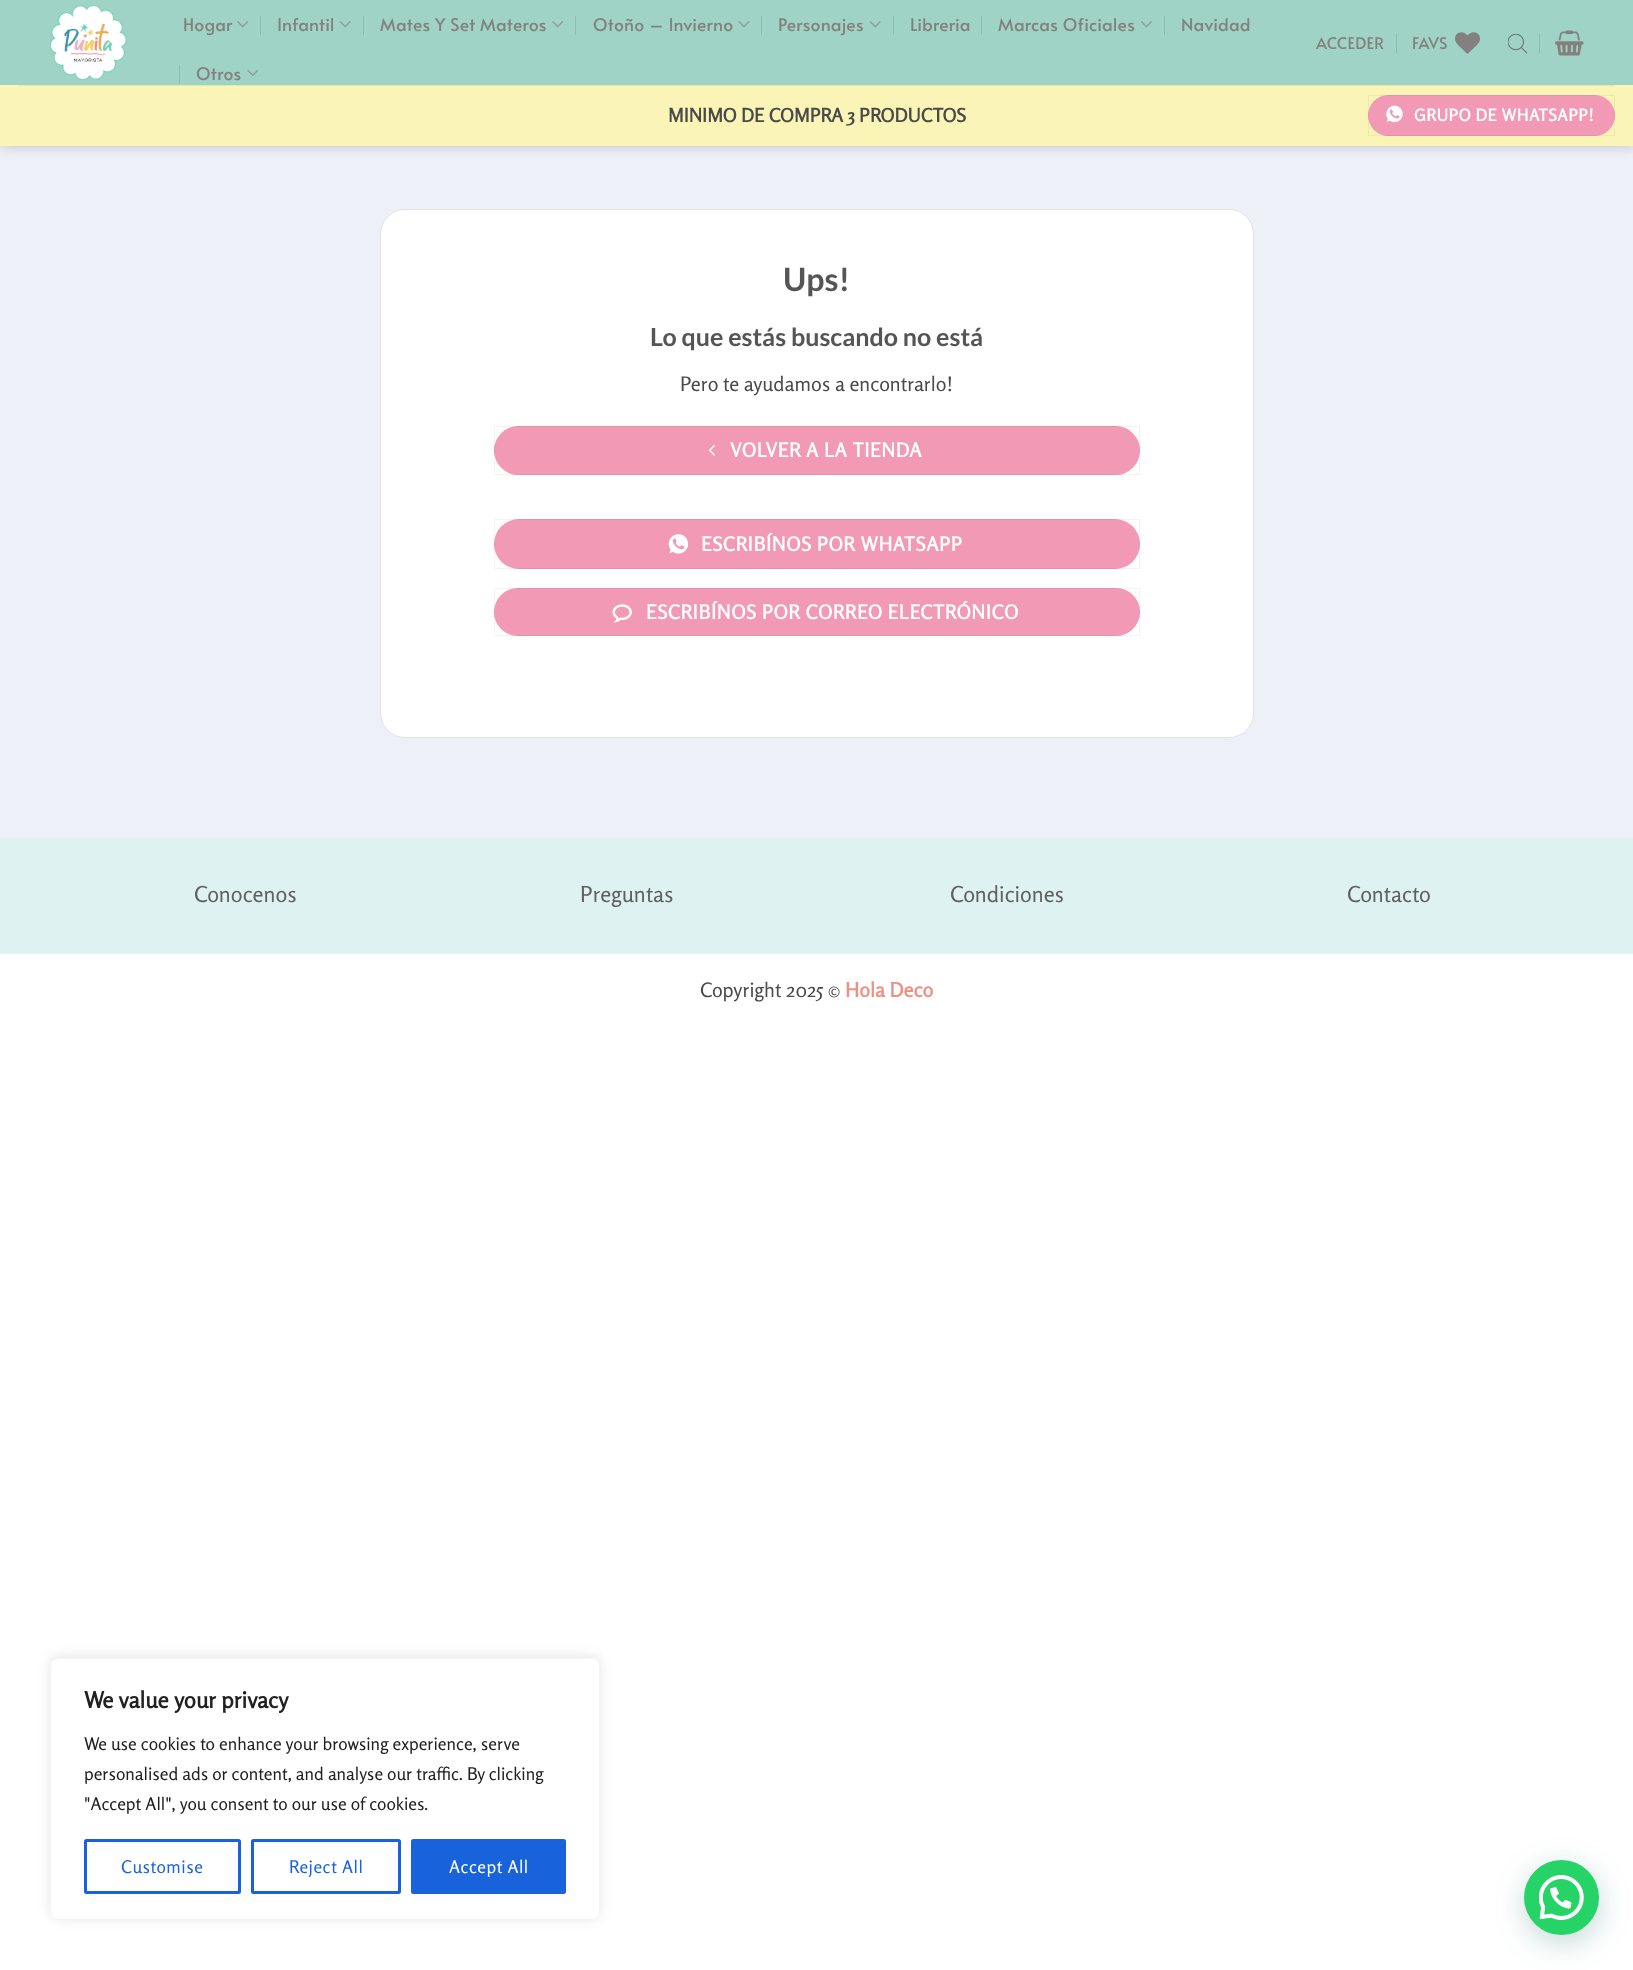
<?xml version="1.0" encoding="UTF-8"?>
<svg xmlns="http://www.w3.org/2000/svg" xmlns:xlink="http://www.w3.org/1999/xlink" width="1633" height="1970">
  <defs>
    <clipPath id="clip1"><path d="M 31 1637 h 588 v 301 h -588 z m 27 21 h 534 c 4.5 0 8 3.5 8 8 v 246 c 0 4.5 -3.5 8 -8 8 h -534 c -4.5 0 -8 -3.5 -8 -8 v -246 c 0 -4.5 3.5 -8 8 -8 z" clip-rule="evenodd" /></clipPath>
  </defs>
  <rect width="100%" height="100%" fill="#ffffff" />
  <rect y="146" width="1633" height="692" fill="#edf1f7" />
  <rect x="1" y="1" width="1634" height="147" fill="#000000" fill-opacity="0.15" filter="blur(6px)" />
  <rect width="1633" height="85" fill="#9ed3c5" />
  <image x="50" y="5" width="77" height="75" xlink:href="image1.png" />
  <image x="237" y="21" width="11" height="7" xlink:href="image2.png" />
  <rect x="260" y="16" width="1" height="19" fill="#8ebeb1" />
  <image x="339" y="21" width="12" height="7" xlink:href="image3.png" />
  <rect x="363" y="16" width="1" height="19" fill="#8ebeb1" />
  <image x="552" y="21" width="11" height="7" xlink:href="image2.png" />
  <rect x="575" y="16" width="1" height="19" fill="#8ebeb1" />
  <image x="738" y="21" width="12" height="7" xlink:href="image4.png" />
  <rect x="761" y="16" width="1" height="19" fill="#8ebeb1" />
  <image x="869" y="21" width="12" height="7" xlink:href="image3.png" />
  <rect x="893" y="16" width="1" height="19" fill="#8ebeb1" />
  <rect x="981" y="16" width="1" height="19" fill="#8ebeb1" />
  <image x="1141" y="21" width="11" height="7" xlink:href="image5.png" />
  <rect x="1164" y="16" width="1" height="19" fill="#8ebeb1" />
  <rect x="179" y="65" width="1" height="19" fill="#8ebeb1" />
  <image x="247" y="69" width="12" height="8" xlink:href="image6.png" />
  <rect x="1396" y="34" width="1" height="19" fill="#8ebeb1" />
  <image x="1455" y="32" width="25" height="22" xlink:href="image7.png" />
  <image x="1508" y="34" width="20" height="20" xlink:href="image8.png" />
  <rect x="1539" y="34" width="1" height="19" fill="#8ebeb1" />
  <image x="1555" y="30" width="29" height="26" xlink:href="image9.png" />
  <rect y="85" width="1633" height="61" fill="#faf5b6" />
  <rect x="19" y="85" width="1596" height="1" fill="#e8e4ab" />
  <rect x="1368" y="95" width="247" height="41" rx="20.5" fill="#f199b5" />
  <rect x="1368.5" y="95.5" width="246" height="40" fill="none" stroke="#000000" stroke-opacity="0.05" />
  <image x="1386" y="105" width="17" height="18" xlink:href="image10.png" />
  <rect x="380.5" y="209.5" width="873" height="528" rx="24.5" fill="#ffffff" stroke="#e3e3e3" />
  <rect x="494" y="426" width="646" height="49" rx="24.5" fill="#f199b5" />
  <rect x="494.5" y="426.5" width="645" height="48" fill="none" stroke="#000000" stroke-opacity="0.05" />
  <image x="708" y="445" width="7" height="11" xlink:href="image11.png" />
  <rect x="494" y="519" width="646" height="50" rx="25" fill="#f199b5" />
  <rect x="494.5" y="519.5" width="645" height="49" fill="none" stroke="#000000" stroke-opacity="0.05" />
  <image x="668" y="534" width="21" height="20" xlink:href="image12.png" />
  <rect x="494" y="588" width="646" height="48" rx="24" fill="#f199b5" />
  <rect x="494.5" y="588.5" width="645" height="47" fill="none" stroke="#000000" stroke-opacity="0.05" />
  <image x="612" y="604" width="20" height="19" xlink:href="image13.png" />
  <rect y="838" width="1633" height="116" fill="#def2f2" />
  <g clip-path="url(#clip1)">
    <rect x="50" y="1656" width="550" height="263" rx="8" fill="#acabab" fill-opacity="0.3" filter="blur(6px)" />
  </g>
  <rect x="50.5" y="1658.5" width="549" height="261" rx="7.5" fill="none" stroke="#f4f4f4" />
  <rect x="85.5" y="1840.5" width="154" height="52" rx="1" fill="none" stroke="#1863dc" stroke-width="3" />
  <rect x="252.5" y="1840.5" width="147" height="52" rx="1" fill="none" stroke="#1863dc" stroke-width="3" />
  <rect x="412.5" y="1840.5" width="152" height="52" rx="1" fill="#1863dc" stroke="#1863dc" stroke-width="3" />
  <rect x="1525" y="1868" width="75" height="75" rx="37.5" fill="#075e54" fill-opacity="0.24" filter="blur(15px)" />
  <circle cx="1561.5" cy="1897.5" r="37.5" fill="#25d366" />
  <image x="1539" y="1875" width="45" height="45" xlink:href="image14.png" />
  <text x="183" y="31" style="font-family: Alata; font-size: 17.5px; letter-spacing: 0.3px; fill: #848080">Hogar</text>
  <text x="277" y="31" style="font-family: Alata; font-size: 17.5px; letter-spacing: 0.3px; fill: #848080">Infantil</text>
  <text x="380" y="31" style="font-family: Alata; font-size: 17.5px; letter-spacing: 0.3px; fill: #848080">Mates Y Set Materos</text>
  <text x="593" y="31" style="font-family: Alata; font-size: 17.5px; letter-spacing: 0.3px; fill: #848080">Otoño – Invierno</text>
  <text x="778" y="31" style="font-family: Alata; font-size: 17.5px; letter-spacing: 0.3px; fill: #848080">Personajes</text>
  <text x="910" y="31" style="font-family: Alata; font-size: 17.5px; letter-spacing: 0.3px; fill: #848080">Libreria</text>
  <text x="998" y="31" style="font-family: Alata; font-size: 17.5px; letter-spacing: 0.3px; fill: #848080">Marcas Oficiales</text>
  <text x="1181" y="31" style="font-family: Alata; font-size: 17.5px; letter-spacing: 0.3px; fill: #848080">Navidad</text>
  <text x="196" y="80" style="font-family: Alata; font-size: 17.5px; letter-spacing: 0.3px; fill: #848080">Otros</text>
  <text x="1316" y="49" style="font-family: Alata; font-size: 16px; letter-spacing: 0.25px; fill: #848080">ACCEDER</text>
  <text x="1412" y="49" style="font-family: Alata; font-size: 16px; letter-spacing: 0.25px; fill: #848080">FAVS</text>
  <text x="668" y="122" style="font-family: Rosario; font-size: 18.75px; font-weight: bold; fill: #4a4a4a">MINIMO DE COMPRA 3 PRODUCTOS</text>
  <text x="1414" y="121" style="font-family: Rosario; font-size: 16.5px; font-weight: bold; letter-spacing: 0.5px; fill: #ffffff">GRUPO DE WHATSAPP!</text>
  <text x="783" y="291" style="font-family: Lato; font-size: 32px; font-weight: bold; fill: #555555">Ups!</text>
  <text x="650" y="346" style="font-family: Lato; font-size: 25px; font-weight: bold; fill: #555555">Lo que estás buscando no está</text>
  <text x="680" y="391" style="font-family: Rosario; font-size: 20px; fill: #4a4a4a">Pero te ayudamos a encontrarlo!</text>
  <text x="730" y="457" style="font-family: Rosario; font-size: 19.4px; font-weight: bold; letter-spacing: 0.6px; fill: #ffffff">VOLVER A LA TIENDA</text>
  <text x="701" y="551" style="font-family: Rosario; font-size: 19.4px; font-weight: bold; letter-spacing: 0.6px; fill: #ffffff">ESCRIBÍNOS POR WHATSAPP</text>
  <text x="646" y="619" style="font-family: Rosario; font-size: 19.4px; font-weight: bold; letter-spacing: 0.6px; fill: #ffffff">ESCRIBÍNOS POR CORREO ELECTRÓNICO</text>
  <text x="194" y="902" style="font-family: Rosario; font-size: 22px; fill: #606060">Conocenos</text>
  <text x="580" y="902" style="font-family: Rosario; font-size: 22px; fill: #606060">Preguntas</text>
  <text x="950" y="902" style="font-family: Rosario; font-size: 22px; fill: #606060">Condiciones</text>
  <text x="1347" y="902" style="font-family: Rosario; font-size: 22px; fill: #606060">Contacto</text>
  <text x="700" y="997" style="font-family: Rosario; font-size: 20px; fill: #4a4a4a">Copyright 2025 ©</text>
  <text x="845" y="997" style="font-family: Rosario; font-size: 20px; font-weight: bold; fill: #ea9284">Hola Deco</text>
  <text x="84" y="1708" style="font-family: Rosario; font-size: 22.5px; font-weight: bold; fill: #212121">We value your privacy</text>
  <text x="84" y="1750" style="font-family: Rosario; font-size: 17.5px; fill: #212121">We use cookies to enhance your browsing experience, serve</text>
  <text x="84" y="1780" style="font-family: Rosario; font-size: 17.5px; fill: #212121">personalised ads or content, and analyse our traffic. By clicking</text>
  <text x="84" y="1810" style="font-family: Rosario; font-size: 17.5px; fill: #212121">"Accept All", you consent to our use of cookies.</text>
  <text x="121" y="1873" style="font-family: Rosario; font-size: 17.5px; letter-spacing: 0.5px; fill: #1863dc">Customise</text>
  <text x="289" y="1873" style="font-family: Rosario; font-size: 17.5px; letter-spacing: 0.5px; fill: #1863dc">Reject All</text>
  <text x="449" y="1873" style="font-family: Rosario; font-size: 17.5px; letter-spacing: 0.5px; fill: #ffffff">Accept All</text>
</svg>
